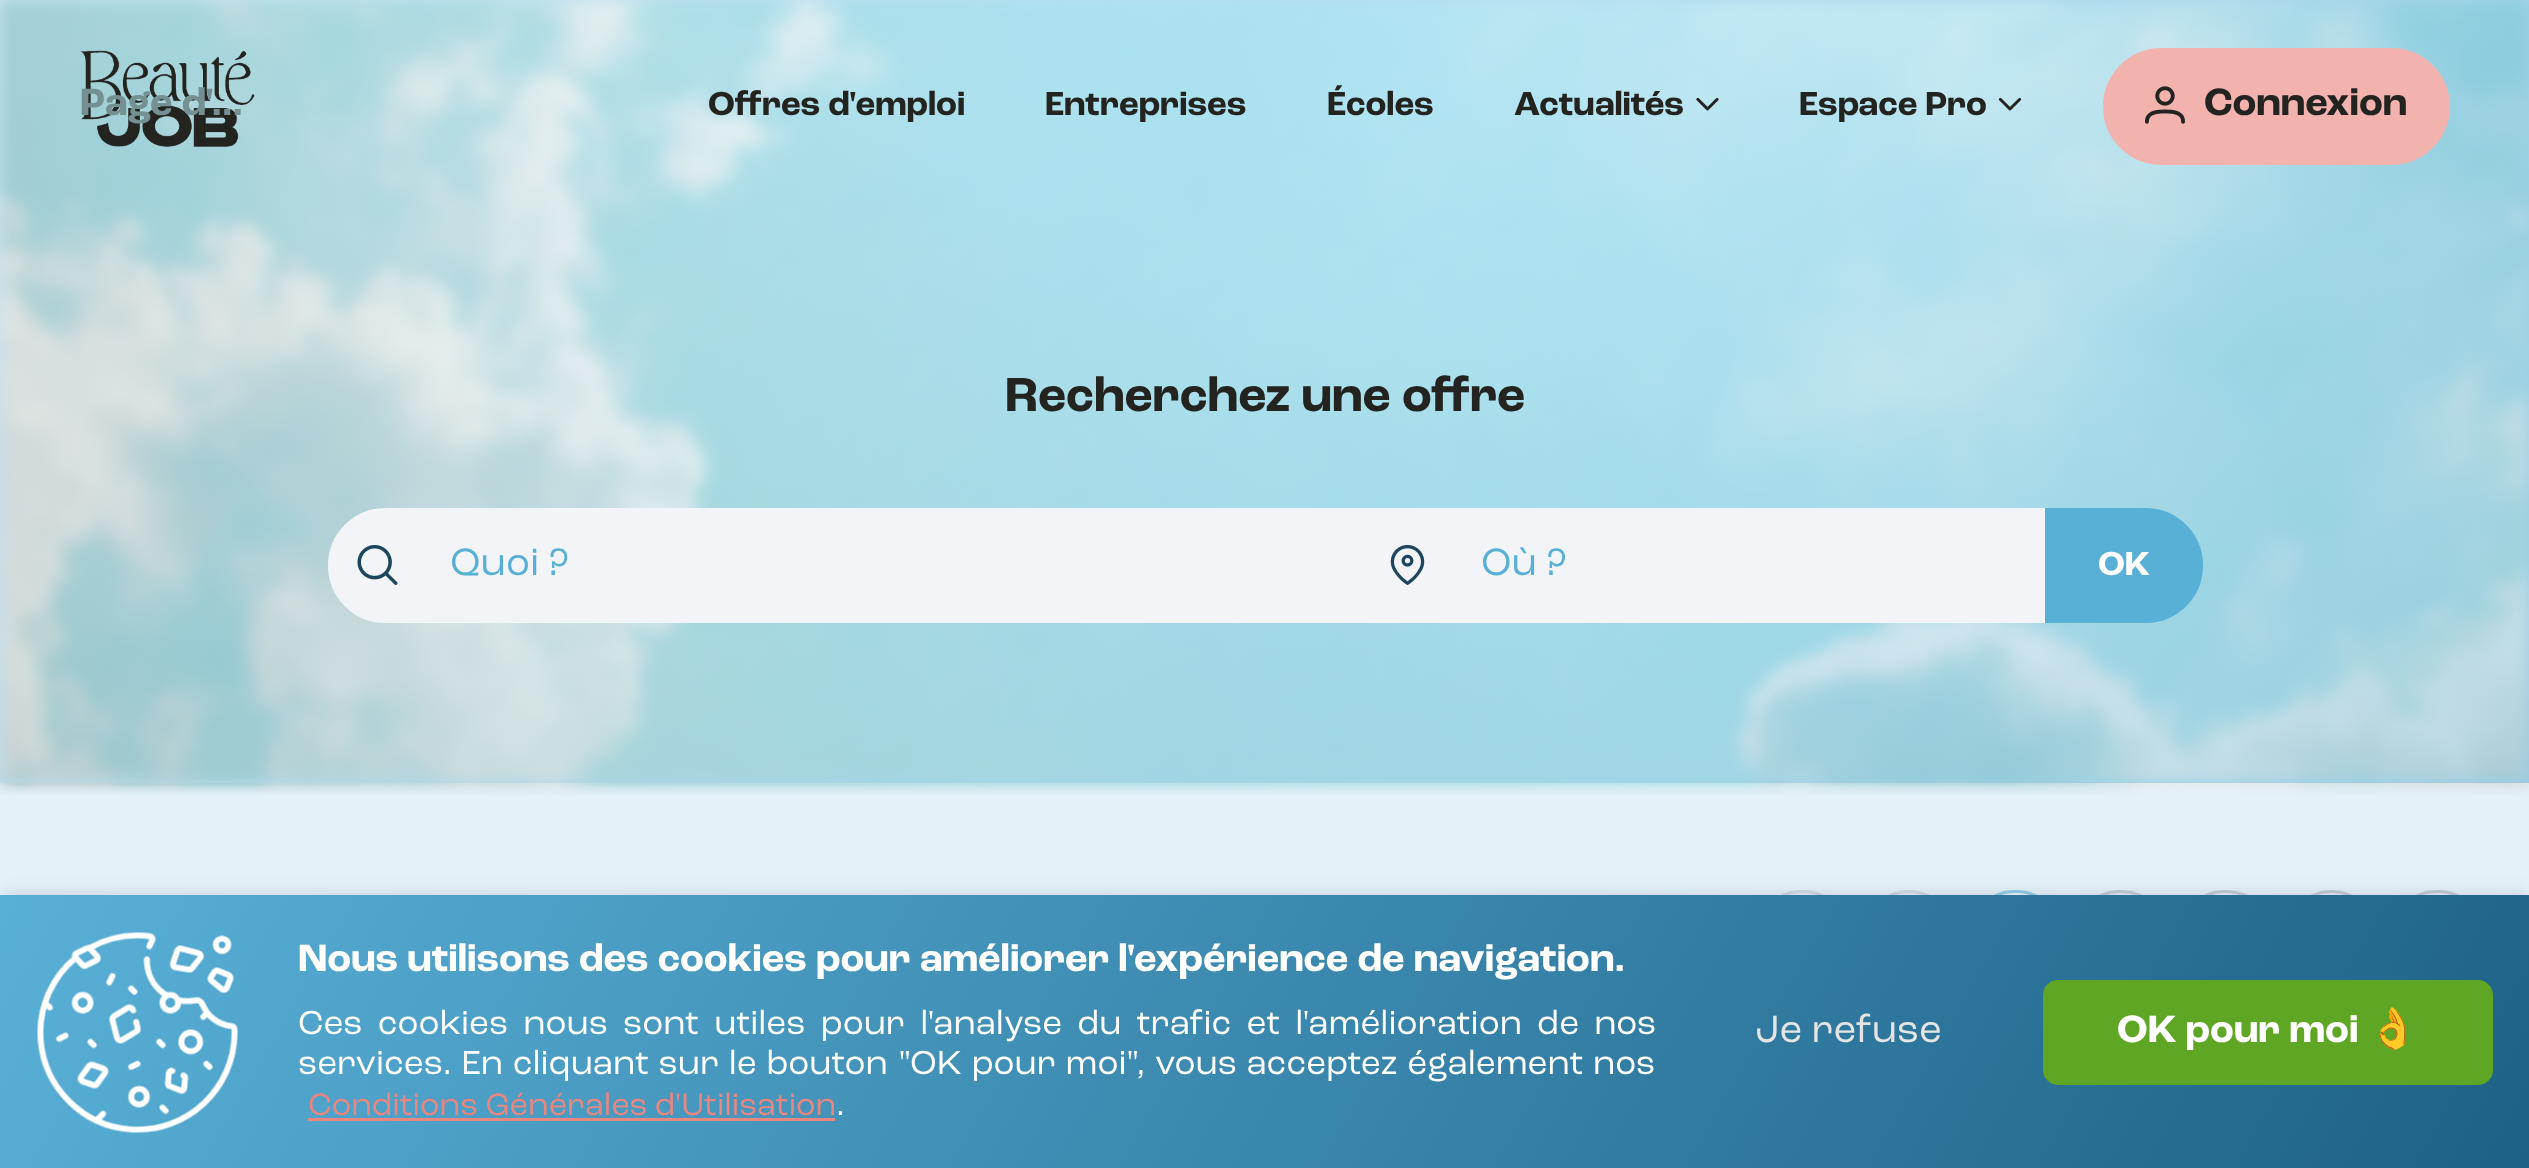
<?xml version="1.0" encoding="UTF-8"?>
<svg xmlns="http://www.w3.org/2000/svg" xmlns:xlink="http://www.w3.org/1999/xlink" width="2529" height="1168">
  <defs>
    <linearGradient id="g1" gradientUnits="userSpaceOnUse" x1="665" y1="-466" x2="1865" y2="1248"><stop offset="0" stop-color="#ffffff" stop-opacity="0.5" /><stop offset="1" stop-color="#93cbe6" stop-opacity="0.5" /></linearGradient>
    <linearGradient id="g2" gradientUnits="userSpaceOnUse" x1="257" y1="450" x2="2273" y2="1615"><stop offset="0" stop-color="#59b0d7" /><stop offset="1" stop-color="#1e6186" /></linearGradient>
  </defs>
  <rect width="100%" height="100%" fill="#e5f1f9" />
  <rect width="2529" height="783" fill="#93cbe6" />
  <image x="0" y="0" width="2529" height="796" xlink:href="image1.png" />
  <rect width="2529" height="783" fill="url(#g1)" />
  <image x="80" y="50" width="175" height="97" xlink:href="image2.png" />
  <image x="1696" y="97" width="23" height="14" xlink:href="image3.png" />
  <image x="1998" y="97" width="24" height="14" xlink:href="image4.png" />
  <rect x="2104.5" y="49.5" width="344" height="114" rx="57" fill="#f2b3af" stroke="#f2b3af" stroke-width="3" />
  <image x="2145" y="86" width="40" height="38" xlink:href="image5.png" />
  <path d="M 385.5 509.5 h 971 v 112 h -971 c -31 0 -56 -25 -56 -56 c 0 -31 25 -56 56 -56 z" fill="#f2f4f7" stroke="#f2f4f7" stroke-width="3" />
  <image x="357" y="545" width="41" height="40" xlink:href="image6.png" />
  <rect x="1358" y="508" width="687" height="115" fill="#f2f4f7" />
  <image x="1390" y="545" width="35" height="40" xlink:href="image7.png" />
  <path d="M 2046.5 509.5 h 99 c 31 0 56 25 56 56 c 0 31 -25 56 -56 56 h -99 z" fill="#59b0d7" stroke="#59b0d7" stroke-width="3" />
  <rect x="1756.5" y="891.5" width="92" height="90" rx="45" fill="none" stroke="#d0dbe3" stroke-width="3" />
  <rect x="1864.5" y="891.5" width="89" height="90" rx="44.5" fill="none" stroke="#d0dbe3" stroke-width="3" />
  <rect x="1969.5" y="891.5" width="92" height="90" rx="45" fill="#f3f8fc" stroke="#93cbe6" stroke-width="3" />
  <rect x="2074.5" y="891.5" width="92" height="90" rx="45" fill="none" stroke="#c3cdd4" stroke-width="3" />
  <rect x="2179.5" y="891.5" width="92" height="90" rx="45" fill="none" stroke="#c3cdd4" stroke-width="3" />
  <circle cx="2331.5" cy="936.5" r="45" fill="none" stroke="#c3cdd4" stroke-width="3" />
  <rect x="2391.5" y="891.5" width="92" height="90" rx="45" fill="none" stroke="#c3cdd4" stroke-width="3" />
  <rect x="5" y="895" width="2520" height="265" fill="#000000" fill-opacity="0.05" filter="blur(5px)" />
  <rect x="3" y="888" width="2525" height="270" fill="#000000" fill-opacity="0.05" filter="blur(7.5px)" />
  <rect y="895" width="2529" height="273" fill="url(#g2)" />
  <image x="37" y="932" width="201" height="201" xlink:href="image8.png" />
  <rect x="308" y="1118" width="527" height="3" fill="#e98680" />
  <rect x="2043" y="980" width="450" height="105" rx="15" fill="#5fa624" />
  <text x="80" y="115" style="font-family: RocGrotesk; font-size: 40px; font-weight: bold; fill: #749093">Page d'…</text>
  <text x="708" y="115" style="font-family: RocGrotesk; font-size: 35px; font-weight: bold; fill: #232320">Offres d'emploi</text>
  <text x="1045" y="115" style="font-family: RocGrotesk; font-size: 35px; font-weight: bold; fill: #232320">Entreprises</text>
  <text x="1327" y="115" style="font-family: RocGrotesk; font-size: 35px; font-weight: bold; fill: #232320">Écoles</text>
  <text x="1514" y="115" style="font-family: RocGrotesk; font-size: 35px; font-weight: bold; fill: #232320">Actualités</text>
  <text x="1799" y="115" style="font-family: RocGrotesk; font-size: 35px; font-weight: bold; fill: #232320">Espace Pro</text>
  <text x="2204" y="115" style="font-family: RocGrotesk; font-size: 40px; font-weight: bold; fill: #232320">Connexion</text>
  <text x="1005" y="411" style="font-family: RocGrotesk; font-size: 50px; font-weight: bold; fill: #232320">Recherchez une offre</text>
  <text x="450" y="575" style="font-family: RocGrotesk; font-size: 40px; fill: #59b0d7">Quoi ?</text>
  <text x="1481" y="575" style="font-family: RocGrotesk; font-size: 40px; fill: #59b0d7">Où ?</text>
  <text x="2098" y="575" style="font-family: RocGrotesk; font-size: 35px; font-weight: bold; fill: #ffffff">OK</text>
  <text x="298" y="971" style="font-family: RocGrotesk; font-size: 40px; font-weight: bold; fill: #ffffff">Nous utilisons des cookies pour améliorer l'expérience de navigation.</text>
  <text x="298" y="1034" word-spacing="7.1" style="font-family: RocGrotesk; font-size: 35px; fill: #ffffff">Ces cookies nous sont utiles pour l'analyse du trafic et l'amélioration de nos</text>
  <text x="298" y="1074" word-spacing="1.5" style="font-family: RocGrotesk; font-size: 35px; fill: #ffffff">services. En cliquant sur le bouton "OK pour moi", vous acceptez également nos</text>
  <text x="308" y="1115" style="font-family: RocGrotesk; font-size: 32.5px; fill: #e98680">Conditions Générales d'Utilisation</text>
  <text x="836" y="1115" style="font-family: RocGrotesk; font-size: 35px; fill: #ffffff">.</text>
  <text x="1755" y="1042" style="font-family: RocGrotesk; font-size: 40px; fill: #e5e5e5">Je refuse</text>
  <text x="2117" y="1042" style="font-family: RocGrotesk; font-size: 40px; font-weight: bold; fill: #ffffff">OK pour moi</text>
  <text x="2368" y="1042" style="font-family: Noto Color Emoji; font-size: 40px; font-weight: bold; fill: #ffffff">👌</text>
</svg>
